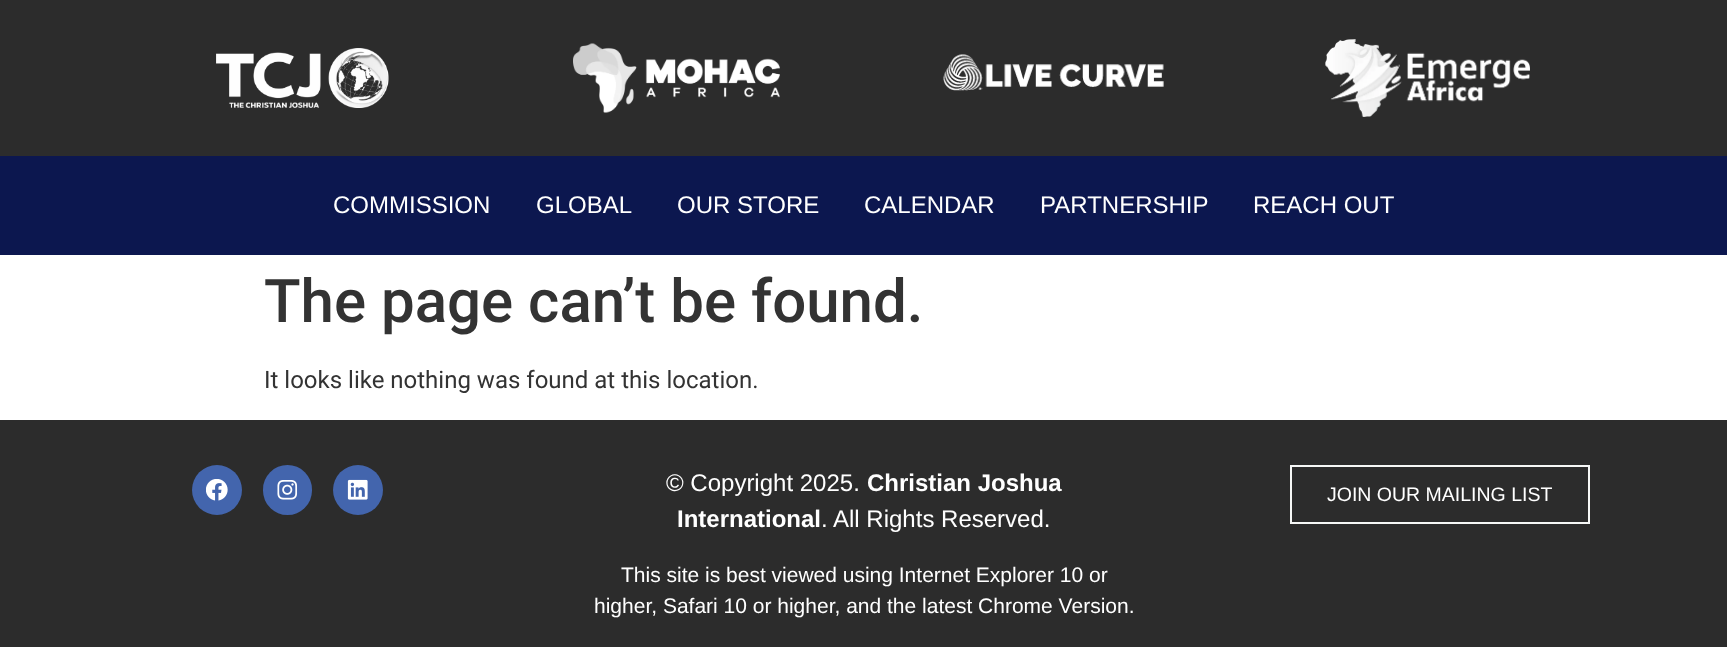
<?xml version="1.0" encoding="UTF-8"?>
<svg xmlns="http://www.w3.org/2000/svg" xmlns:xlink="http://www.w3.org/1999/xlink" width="1727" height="647">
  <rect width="100%" height="100%" fill="#ffffff" />
  <rect width="1727" height="156" fill="#2c2c2c" />
  <image x="216" y="48" width="173" height="60" xlink:href="image1.png" />
  <image x="573" y="43" width="207" height="70" xlink:href="image2.png" />
  <image x="943" y="54" width="221" height="37" xlink:href="image3.png" />
  <image x="1325" y="39" width="205" height="78" xlink:href="image4.png" />
  <rect y="156" width="1727" height="99" fill="#0c174f" />
  <rect y="420" width="1727" height="227" fill="#2c2c2c" />
  <circle cx="217" cy="490" r="25" fill="#4365ad" />
  <image x="206" y="479" width="22" height="22" xlink:href="image5.png" />
  <rect x="263" y="465" width="49" height="50" rx="24.5" fill="#4365ad" />
  <image x="277" y="480" width="21" height="20" xlink:href="image6.png" />
  <circle cx="358" cy="490" r="25" fill="#4365ad" />
  <image x="347" y="479" width="21" height="21" xlink:href="image7.png" />
  <rect x="1291" y="466" width="298" height="57" fill="none" stroke="#f6f8f7" stroke-width="2" />
  <text x="333" y="213" style="font-family: Liberation Sans; font-size: 24px; fill: #ffffff">COMMISSION</text>
  <text x="536" y="213" style="font-family: Liberation Sans; font-size: 24px; fill: #ffffff">GLOBAL</text>
  <text x="677" y="213" style="font-family: Liberation Sans; font-size: 24px; fill: #ffffff">OUR STORE</text>
  <text x="864" y="213" style="font-family: Liberation Sans; font-size: 24px; fill: #ffffff">CALENDAR</text>
  <text x="1040" y="213" style="font-family: Liberation Sans; font-size: 24px; fill: #ffffff">PARTNERSHIP</text>
  <text x="1253" y="213" style="font-family: Liberation Sans; font-size: 24px; fill: #ffffff">REACH OUT</text>
  <text x="264" y="322" style="font-family: Roboto; font-size: 60px; font-weight: 500; fill: #333333">The page can’t be found.</text>
  <text x="264" y="388" style="font-family: Roboto; font-size: 24px; fill: #333333">It looks like nothing was found at this location.</text>
  <text x="666" y="491" style="font-family: Liberation Sans; font-size: 24px; fill: #ffffff">© Copyright 2025.</text>
  <text x="867" y="491" style="font-family: Liberation Sans; font-size: 24px; font-weight: bold; fill: #ffffff">Christian Joshua</text>
  <text x="677" y="527" style="font-family: Liberation Sans; font-size: 24px; font-weight: bold; fill: #ffffff">International</text>
  <text x="821" y="527" style="font-family: Liberation Sans; font-size: 24px; fill: #ffffff">. All Rights Reserved.</text>
  <text x="621" y="582" style="font-family: Liberation Sans; font-size: 21px; fill: #ffffff">This site is best viewed using Internet Explorer 10 or</text>
  <text x="594" y="613" style="font-family: Liberation Sans; font-size: 21px; fill: #ffffff">higher, Safari 10 or higher, and the latest Chrome Version.</text>
  <text x="1327" y="501" style="font-family: Liberation Sans; font-size: 19.5px; fill: #ffffff">JOIN OUR MAILING LIST</text>
</svg>
